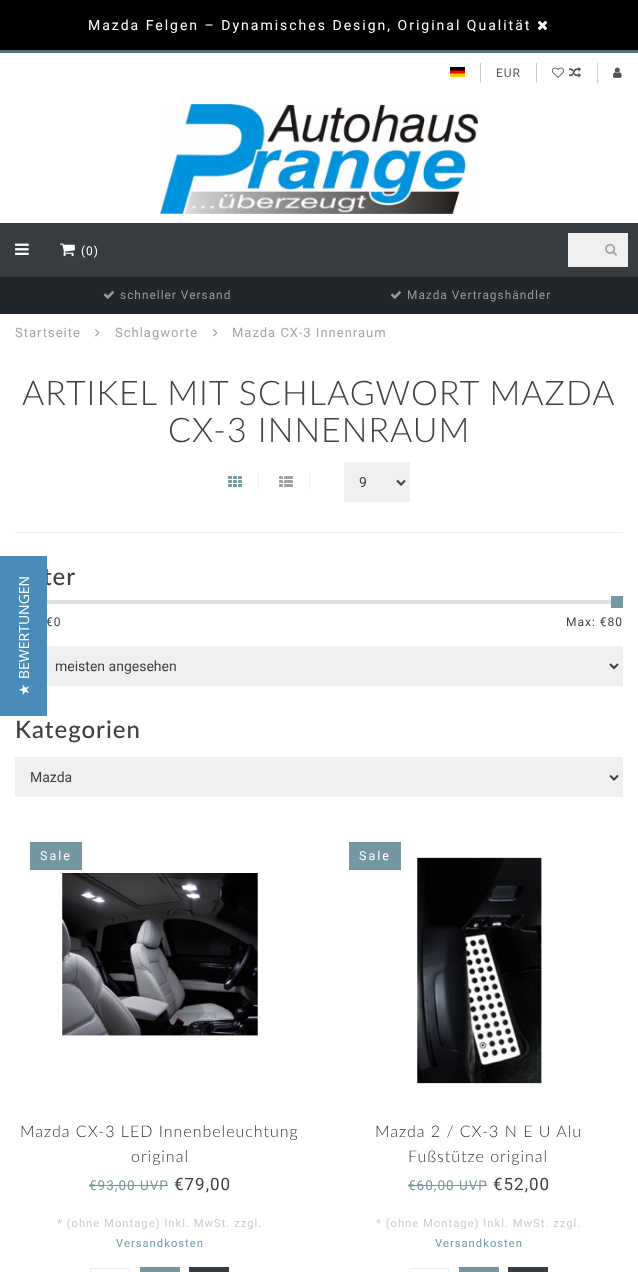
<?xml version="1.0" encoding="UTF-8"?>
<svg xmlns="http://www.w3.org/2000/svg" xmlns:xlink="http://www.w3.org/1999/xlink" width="638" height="1272">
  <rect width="100%" height="100%" fill="#ffffff" />
  <rect width="638" height="50" fill="#000000" />
  <image x="537" y="20" width="11" height="11" xlink:href="image1.png" />
  <rect y="50" width="638" height="3" fill="#517179" />
  <rect x="480" y="63" width="1" height="20" fill="#cccccc" />
  <image x="450" y="67" width="15" height="10" xlink:href="image2.png" />
  <rect x="536" y="63" width="1" height="20" fill="#cccccc" />
  <rect x="597" y="63" width="1" height="20" fill="#cccccc" />
  <image x="552" y="67" width="12" height="11" xlink:href="image3.png" />
  <image x="569" y="67" width="12" height="11" xlink:href="image4.png" />
  <image x="613" y="67" width="9" height="11" xlink:href="image5.png" />
  <image x="160" y="104" width="318" height="110" xlink:href="image6.png" />
  <rect y="223" width="638" height="54" fill="#363c3f" />
  <image x="15" y="243" width="14" height="12" xlink:href="image7.png" />
  <image x="60" y="243" width="15" height="14" xlink:href="image8.png" />
  <rect x="568" y="233" width="60" height="34" fill="#efefef" />
  <image x="605" y="243" width="12" height="13" xlink:href="image9.png" />
  <rect y="277" width="638" height="37" fill="#202629" />
  <image x="103" y="291" width="11" height="8" xlink:href="image10.png" />
  <image x="390" y="291" width="11" height="8" xlink:href="image10.png" />
  <image x="95" y="329" width="5" height="8" xlink:href="image11.png" />
  <image x="213" y="329" width="5" height="8" xlink:href="image11.png" />
  <rect x="258" y="474" width="1" height="16" fill="#eeeeee" />
  <image x="228" y="476" width="14" height="11" xlink:href="image12.png" />
  <rect x="309" y="474" width="1" height="16" fill="#eeeeee" />
  <image x="279" y="476" width="14" height="11" xlink:href="image13.png" />
  <rect x="344" y="462" width="66" height="40" fill="#efefef" />
  <path d="M 397 480.5 l 4 4 l 4 -4" fill="none" stroke="#414141" stroke-width="2" />
  <rect x="15" y="532" width="608" height="1" fill="#eeeeee" />
  <rect x="47" y="600" width="564" height="4" fill="#e2e2e2" />
  <rect x="611" y="596" width="12" height="12" fill="#7498a2" />
  <rect x="47" y="646" width="576" height="40" fill="#efefef" />
  <path d="M 610 664 l 4 4 l 4 -4" fill="none" stroke="#414141" stroke-width="2" />
  <rect x="15" y="757" width="608" height="40" fill="#efefef" />
  <path d="M 610 775.5 l 4 4 l 4 -4" fill="none" stroke="#414141" stroke-width="2" />
  <rect x="30" y="842" width="52" height="28" fill="#7498a2" />
  <image x="62" y="873" width="196" height="163" xlink:href="image14.png" />
  <rect x="89" y="1185" width="79" height="1" fill="#7498a2" />
  <rect x="90.5" y="1268.5" width="39" height="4" fill="none" stroke="#eeeeee" />
  <rect x="140" y="1267" width="40" height="5" fill="#7498a2" />
  <rect x="189" y="1267" width="40" height="5" fill="#363c3f" />
  <rect x="349" y="842" width="52" height="28" fill="#7498a2" />
  <image x="417" y="857" width="126" height="227" xlink:href="image15.png" />
  <rect x="408" y="1185" width="79" height="1" fill="#7498a2" />
  <rect x="409.5" y="1268.5" width="39" height="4" fill="none" stroke="#eeeeee" />
  <rect x="459" y="1267" width="40" height="5" fill="#7498a2" />
  <rect x="508" y="1267" width="40" height="5" fill="#363c3f" />
  <text x="88" y="30" style="font-family: Roboto; font-size: 14px; letter-spacing: 2px; fill: #ffffff">Mazda Felgen – Dynamisches Design, Original Qualität</text>
  <text x="496" y="77" style="font-family: Roboto; font-size: 12px; letter-spacing: 1px; fill: #525557">EUR</text>
  <text x="81" y="255" style="font-family: Roboto; font-size: 12px; letter-spacing: 1px; fill: #ffffff">(0)</text>
  <text x="120" y="299" style="font-family: Roboto; font-size: 11.9px; letter-spacing: 1px; fill: #9a9d9f">schneller Versand</text>
  <text x="407" y="299" style="font-family: Roboto; font-size: 11.9px; letter-spacing: 1px; fill: #9a9d9f">Mazda Vertragshändler</text>
  <text x="15" y="337" style="font-family: Roboto; font-size: 13px; letter-spacing: 1px; fill: #a5a5a5">Startseite</text>
  <text x="115" y="337" style="font-family: Roboto; font-size: 13px; letter-spacing: 1px; fill: #a5a5a5">Schlagworte</text>
  <text x="232" y="337" style="font-family: Roboto; font-size: 13px; letter-spacing: 1px; fill: #a5a5a5">Mazda CX-3 Innenraum</text>
  <text x="22" y="405" style="font-family: Lato; font-size: 34px; font-weight: 300; letter-spacing: 1px; fill: #414141">ARTIKEL MIT SCHLAGWORT MAZDA</text>
  <text x="168" y="442" style="font-family: Lato; font-size: 34px; font-weight: 300; letter-spacing: 1px; fill: #414141">CX-3 INNENRAUM</text>
  <text x="359" y="487" style="font-family: Roboto; font-size: 14px; fill: #414141">9</text>
  <text x="43" y="585" style="font-family: Lato; font-size: 24px; font-weight: 500; letter-spacing: 1px; fill: #414141">ter</text>
  <text x="46" y="626" style="font-family: Roboto; font-size: 12px; letter-spacing: 1px; fill: #414141">€0</text>
  <text x="566" y="626" style="font-family: Roboto; font-size: 12px; letter-spacing: 1px; fill: #414141">Max: €80</text>
  <text x="55" y="671" style="font-family: Roboto; font-size: 14px; fill: #414141">meisten angesehen</text>
  <text x="15" y="738" style="font-family: Lato; font-size: 24px; font-weight: 500; letter-spacing: 1px; fill: #414141">Kategorien</text>
  <text x="30" y="782" style="font-family: Roboto; font-size: 14px; fill: #414141">Mazda</text>
  <text x="40" y="860" style="font-family: Roboto; font-size: 12.5px; letter-spacing: 2px; fill: #ffffff">Sale</text>
  <text x="20" y="1137" style="font-family: Lato; font-size: 16px; font-weight: 300; letter-spacing: 1px; fill: #333333">Mazda CX-3 LED Innenbeleuchtung</text>
  <text x="131" y="1162" style="font-family: Lato; font-size: 16px; font-weight: 300; letter-spacing: 1px; fill: #333333">original</text>
  <text x="89" y="1190" style="font-family: Roboto; font-size: 13.5px; letter-spacing: 1px; fill: #7498a2">€93,00 UVP</text>
  <text x="174" y="1190" style="font-family: Roboto; font-size: 17px; letter-spacing: 1px; fill: #414141">€79,00</text>
  <text x="57" y="1227" style="font-family: Roboto; font-size: 11.25px; letter-spacing: 1px; fill: #cccccc">* (ohne Montage) Inkl. MwSt. zzgl.</text>
  <text x="116" y="1247" style="font-family: Roboto; font-size: 11.25px; letter-spacing: 1px; fill: #7498a2">Versandkosten</text>
  <text x="359" y="860" style="font-family: Roboto; font-size: 12.5px; letter-spacing: 2px; fill: #ffffff">Sale</text>
  <text x="375" y="1137" style="font-family: Lato; font-size: 16px; font-weight: 300; letter-spacing: 1px; fill: #333333">Mazda 2 / CX-3 N E U Alu</text>
  <text x="408" y="1162" style="font-family: Lato; font-size: 16px; font-weight: 300; letter-spacing: 1px; fill: #333333">Fußstütze original</text>
  <text x="408" y="1190" style="font-family: Roboto; font-size: 13.5px; letter-spacing: 1px; fill: #7498a2">€60,00 UVP</text>
  <text x="493" y="1190" style="font-family: Roboto; font-size: 17px; letter-spacing: 1px; fill: #414141">€52,00</text>
  <text x="376" y="1227" style="font-family: Roboto; font-size: 11.25px; letter-spacing: 1px; fill: #cccccc">* (ohne Montage) Inkl. MwSt. zzgl.</text>
  <text x="435" y="1247" style="font-family: Roboto; font-size: 11.25px; letter-spacing: 1px; fill: #7498a2">Versandkosten</text>
  <rect y="556" width="47" height="160" fill="#498cbc" />
  <text x="29" y="679" transform="rotate(-90 29 679)" style="font-family: Open Sans; font-size: 14px; fill: #ffffff">BEWERTUNGEN</text>
  <text x="29" y="696" transform="rotate(-90 29 696)" style="font-family: DejaVu Sans; font-size: 14px; fill: #ffffff">★</text>
</svg>
